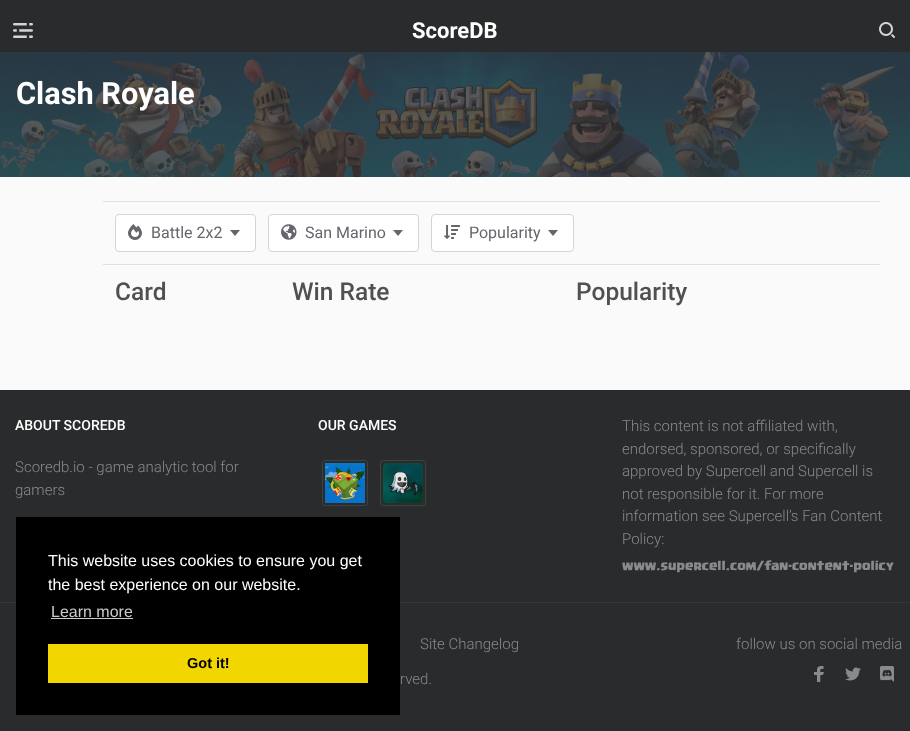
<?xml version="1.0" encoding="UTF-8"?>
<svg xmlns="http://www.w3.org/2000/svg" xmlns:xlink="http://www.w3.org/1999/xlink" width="910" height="731">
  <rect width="100%" height="100%" fill="#fafafa" />
  <rect width="910" height="52" fill="#2a2b2d" />
  <image x="13" y="23" width="20" height="15" xlink:href="image1.png" />
  <image x="879" y="22" width="16" height="16" xlink:href="image2.png" />
  <rect y="52" width="910" height="125" fill="#333235" />
  <image x="0" y="52" width="910" height="125" xlink:href="image3.png" />
  <rect x="103" y="201" width="777" height="1" fill="#dee2e6" />
  <rect x="115.5" y="214.5" width="140" height="37" rx="3.5" fill="#ffffff" stroke="#d4d4d4" />
  <image x="128" y="224" width="14" height="16" xlink:href="image4.png" />
  <path d="M 230 230 l 5 6 l 5 -6 z" fill="#67646b" />
  <rect x="268.5" y="214.5" width="150" height="37" rx="3.5" fill="#ffffff" stroke="#d4d4d4" />
  <image x="281" y="224" width="16" height="16" xlink:href="image5.png" />
  <path d="M 393 230 l 5 6 l 5 -6 z" fill="#67646b" />
  <rect x="431.5" y="214.5" width="142" height="37" rx="3.5" fill="#ffffff" stroke="#d4d4d4" />
  <image x="444" y="225" width="16" height="14" xlink:href="image6.png" />
  <path d="M 548 230 l 5 6 l 5 -6 z" fill="#67646b" />
  <rect x="103" y="264" width="777" height="1" fill="#dee2e6" />
  <rect y="390" width="910" height="341" fill="#2a2b2d" />
  <rect x="322.5" y="460.5" width="45" height="45" rx="2.5" fill="none" stroke="#3f4042" />
  <image x="325" y="463" width="40" height="40" xlink:href="image7.png" />
  <rect x="380.5" y="460.5" width="45" height="45" rx="2.5" fill="none" stroke="#3f4042" />
  <image x="383" y="463" width="40" height="40" xlink:href="image8.png" />
  <rect y="602" width="910" height="1" fill="#353638" />
  <image x="814" y="666" width="10" height="16" xlink:href="image9.png" />
  <image x="845" y="667" width="16" height="14" xlink:href="image10.png" />
  <image x="880" y="666" width="14" height="16" xlink:href="image11.png" />
  <rect x="16" y="517" width="384" height="198" fill="#000000" />
  <rect x="51" y="618" width="82" height="1" fill="#cccccc" />
  <rect x="48" y="644" width="320" height="39" fill="#f1d600" />
  <text x="412" y="38" style="font-family: Roboto; font-size: 22px; font-weight: bold; fill: #ffffff">ScoreDB</text>
  <text x="16" y="104" style="font-family: Roboto; font-size: 30.75px; font-weight: bold; fill: #ffffff">Clash Royale</text>
  <text x="151" y="238" style="font-family: Roboto; font-size: 16px; fill: #67646b">Battle 2x2</text>
  <text x="305" y="238" style="font-family: Roboto; font-size: 16px; fill: #67646b">San Marino</text>
  <text x="469" y="238" style="font-family: Roboto; font-size: 16px; fill: #67646b">Popularity</text>
  <text x="115" y="300" style="font-family: Roboto; font-size: 24.5px; font-weight: 500; fill: #505050">Card</text>
  <text x="292" y="300" style="font-family: Roboto; font-size: 24.5px; font-weight: 500; fill: #505050">Win Rate</text>
  <text x="576" y="300" style="font-family: Roboto; font-size: 24.5px; font-weight: 500; fill: #505050">Popularity</text>
  <text x="15" y="430" style="font-family: Roboto; font-size: 14px; font-weight: 500; fill: #ffffff">ABOUT SCOREDB</text>
  <text x="15" y="472" style="font-family: Roboto; font-size: 15px; font-weight: 300; fill: #8a8a8c">Scoredb.io - game analytic tool for</text>
  <text x="15" y="495" style="font-family: Roboto; font-size: 15px; font-weight: 300; fill: #8a8a8c">gamers</text>
  <text x="318" y="430" style="font-family: Roboto; font-size: 14px; font-weight: 500; fill: #ffffff">OUR GAMES</text>
  <text x="622" y="431" style="font-family: Roboto; font-size: 15px; font-weight: 300; fill: #8a8a8c">This content is not affiliated with,</text>
  <text x="622" y="454" style="font-family: Roboto; font-size: 15px; font-weight: 300; fill: #8a8a8c">endorsed, sponsored, or specifically</text>
  <text x="622" y="476" style="font-family: Roboto; font-size: 15px; font-weight: 300; fill: #8a8a8c">approved by Supercell and Supercell is</text>
  <text x="622" y="499" style="font-family: Roboto; font-size: 15px; font-weight: 300; fill: #8a8a8c">not responsible for it. For more</text>
  <text x="622" y="521" style="font-family: Roboto; font-size: 15px; font-weight: 300; fill: #8a8a8c">information see Supercell’s Fan Content</text>
  <text x="622" y="544" style="font-family: Roboto; font-size: 15px; font-weight: 300; fill: #8a8a8c">Policy:</text>
  <text x="622" y="570" style="font-family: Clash; font-size: 12px; fill: #8a8a8c">www.supercell.com/fan-content-policy</text>
  <text x="420" y="649" style="font-family: Roboto; font-size: 15px; font-weight: 300; fill: #8a8a8c">Site Changelog</text>
  <text x="400" y="684" style="font-family: Roboto; font-size: 15px; font-weight: 300; fill: #8a8a8c">rved.</text>
  <text x="736" y="649" style="font-family: Roboto; font-size: 15px; font-weight: 300; fill: #8a8a8c">follow us on social media</text>
  <text x="48" y="566" style="font-family: Liberation Sans; font-size: 16px; fill: #ffffff">This website uses cookies to ensure you get</text>
  <text x="48" y="590" style="font-family: Liberation Sans; font-size: 16px; fill: #ffffff">the best experience on our website.</text>
  <text x="51" y="617" style="font-family: Liberation Sans; font-size: 16px; fill: #cccccc">Learn more</text>
  <text x="187" y="668" style="font-family: Liberation Sans; font-size: 14.5px; font-weight: bold; fill: #000000">Got it!</text>
</svg>
